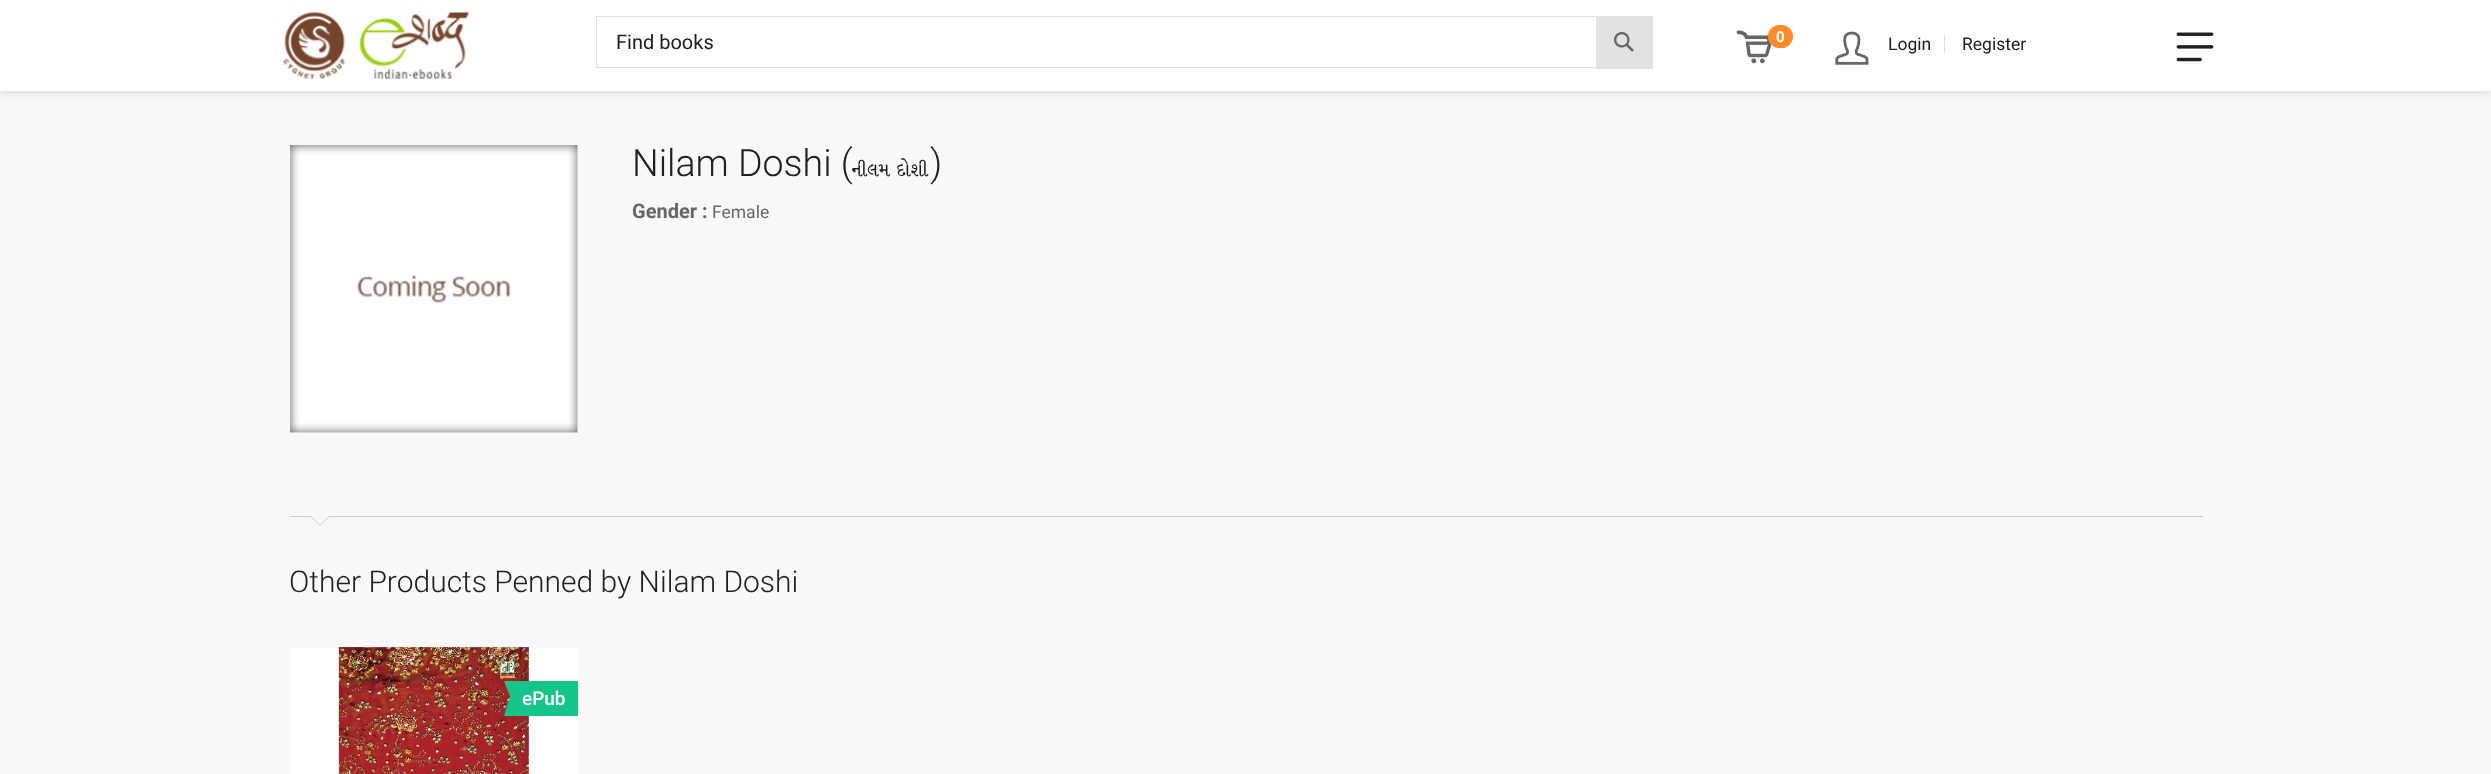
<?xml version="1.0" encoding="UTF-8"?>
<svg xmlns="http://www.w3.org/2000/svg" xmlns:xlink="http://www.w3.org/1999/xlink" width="2491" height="774">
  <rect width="100%" height="100%" fill="#f8f8f8" />
  <rect y="1" width="2491" height="92" fill="#000000" fill-opacity="0.12" filter="blur(4px)" />
  <rect width="2491" height="91" fill="#ffffff" />
  <image x="283" y="12" width="187" height="67" xlink:href="image1.png" />
  <rect x="596.5" y="16.5" width="1056" height="51" fill="none" stroke="#e2e2e2" />
  <rect x="1596" y="17" width="57" height="52" fill="#e2e2e2" />
  <image x="1614" y="32" width="20" height="20" xlink:href="image2.png" />
  <image x="1736" y="30" width="36" height="34" xlink:href="image3.png" />
  <rect x="1768" y="25" width="25" height="23" rx="11.5" fill="#ff8a2c" />
  <image x="1835" y="31" width="34" height="34" xlink:href="image4.png" />
  <rect x="1944" y="34" width="1" height="20" fill="#e2e2e2" />
  <image x="2176" y="32" width="38" height="30" xlink:href="image5.png" />
  <image x="290" y="145" width="288" height="288" xlink:href="image6.png" />
  <rect x="290" y="516" width="1913" height="1" fill="#cdcdcd" />
  <path d="M 310 516 h 20 l -10 10 z" fill="#cdcdcd" />
  <path d="M 310 515 h 20 l -10 10 z" fill="#f8f8f8" />
  <rect x="290" y="648" width="288" height="126" fill="#ffffff" />
  <image x="338" y="647" width="191" height="127" xlink:href="image7.png" />
  <rect x="510" y="681" width="68" height="35" fill="#16c589" />
  <path d="M 504 681 h 6 v 15 z m 6 35 h -6 l 6 -20 z" fill="#16c589" />
  <text x="616" y="49" style="font-family: Roboto; font-size: 20px; fill: #202020">Find books</text>
  <text x="1776" y="42" style="font-family: Roboto; font-size: 15px; font-weight: bold; fill: #ffffff">0</text>
  <text x="1888" y="50" style="font-family: Roboto; font-size: 17.5px; fill: #202020">Login</text>
  <text x="1962" y="50" style="font-family: Roboto; font-size: 17.5px; fill: #202020">Register</text>
  <text x="632" y="176" style="font-family: Roboto; font-size: 37.5px; font-weight: 300; fill: #202020">Nilam Doshi (</text>
  <text x="852" y="176" style="font-family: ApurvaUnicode; font-size: 21px; fill: #202020">નીલમ દોશી</text>
  <text x="930" y="176" style="font-family: Roboto; font-size: 37.5px; font-weight: 300; fill: #202020">)</text>
  <text x="632" y="218" style="font-family: Roboto; font-size: 20px; font-weight: bold; fill: #666666">Gender :</text>
  <text x="712" y="218" style="font-family: Roboto; font-size: 17.5px; fill: #666666">Female</text>
  <text x="289" y="592" style="font-family: Roboto; font-size: 30px; font-weight: 300; fill: #202020">Other Products Penned by Nilam Doshi</text>
  <text x="522" y="705" style="font-family: Roboto; font-size: 19px; font-weight: 500; fill: #ffffff">ePub</text>
</svg>
